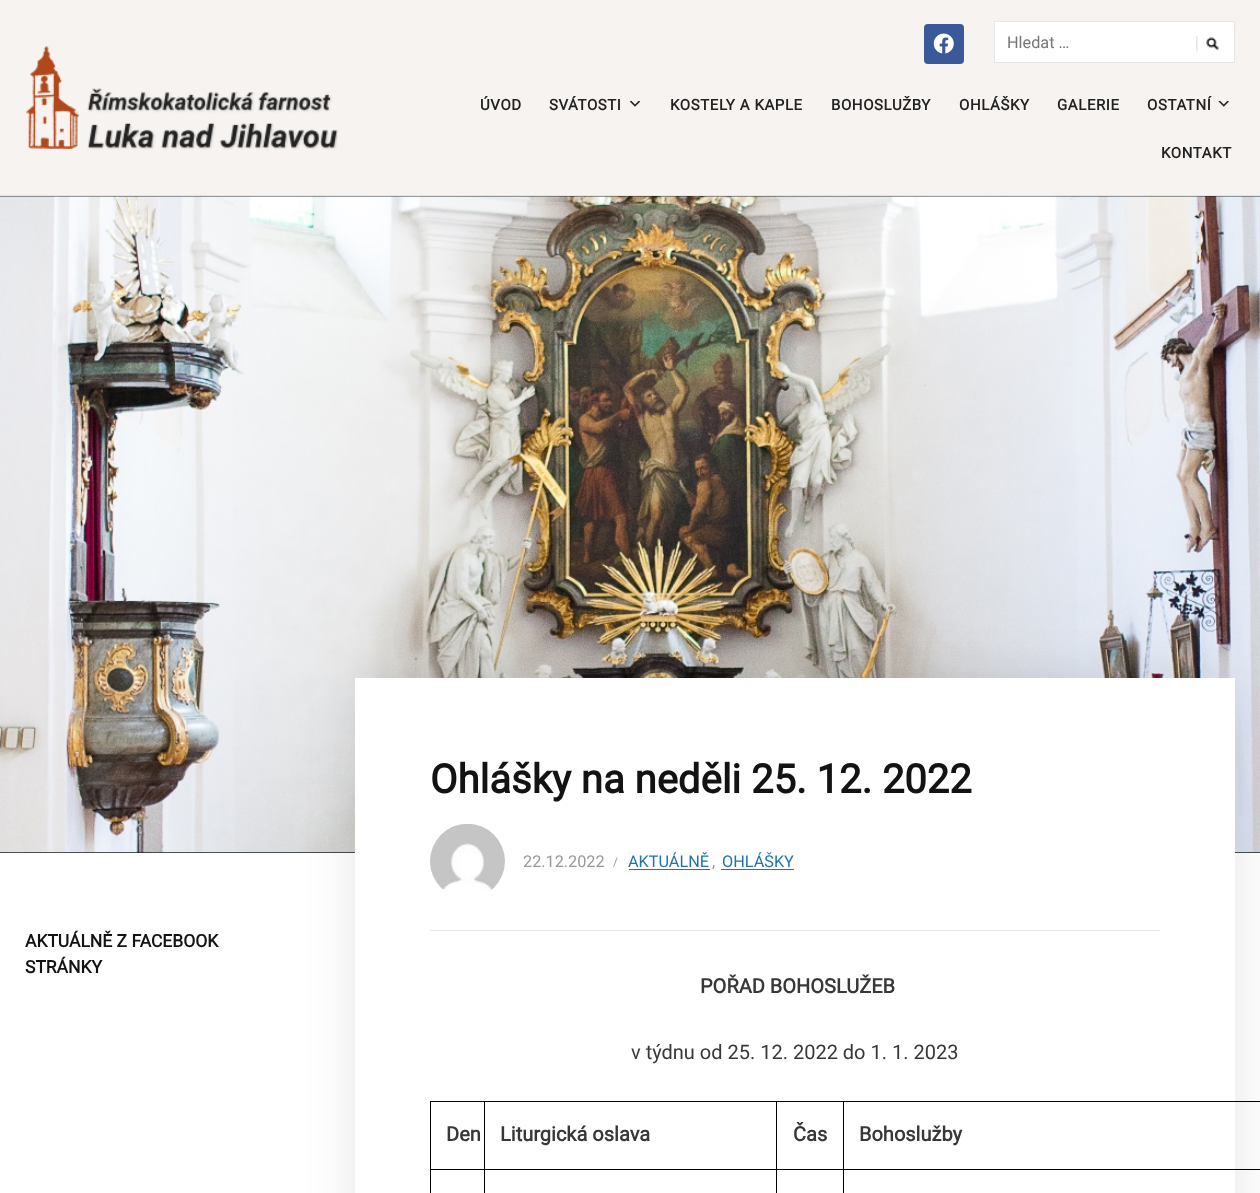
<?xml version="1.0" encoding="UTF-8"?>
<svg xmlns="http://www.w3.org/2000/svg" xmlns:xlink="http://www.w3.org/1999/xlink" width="1260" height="1193">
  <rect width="100%" height="100%" fill="#ffffff" />
  <rect width="1260" height="195" fill="#f7f3f0" />
  <rect y="195" width="1260" height="1" fill="#e7e3e0" />
  <image x="26" y="46" width="312" height="104" xlink:href="image1.png" />
  <rect x="924" y="24" width="40" height="40" rx="4" fill="#3b5998" />
  <image x="933" y="33" width="21" height="21" xlink:href="image2.png" />
  <rect x="994.5" y="21.5" width="240" height="41" fill="#ffffff" stroke="#e6e6e6" />
  <image x="1196" y="36" width="23" height="16" xlink:href="image3.png" />
  <image x="629" y="100" width="12" height="7" xlink:href="image4.png" />
  <image x="1218" y="100" width="11" height="7" xlink:href="image5.png" />
  <rect y="196" width="1260" height="657" fill="#182122" />
  <image x="0" y="196" width="1260" height="657" xlink:href="image6.png" />
  <rect x="355" y="678" width="880" height="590" fill="#000000" fill-opacity="0.1" filter="blur(25px)" />
  <rect x="355" y="678" width="880" height="515" fill="#ffffff" />
  <rect x="430" y="930" width="730" height="1" fill="#e6e6e6" />
  <image x="430" y="824" width="75" height="66" xlink:href="image7.png" />
  <rect x="629" y="869" width="81" height="1" fill="#1e74a9" />
  <rect x="721" y="869" width="73" height="1" fill="#1e74a9" />
  <rect x="843" y="1101" width="417" height="1" fill="#000000" />
  <rect x="843" y="1169" width="417" height="1" fill="#000000" />
  <rect x="843" y="1169" width="1" height="24" fill="#000000" />
  <rect x="776" y="1169" width="68" height="1" fill="#000000" />
  <rect x="843" y="1101" width="1" height="69" fill="#000000" />
  <rect x="776" y="1101" width="68" height="1" fill="#000000" />
  <rect x="776" y="1169" width="1" height="24" fill="#000000" />
  <rect x="484" y="1169" width="294" height="1" fill="#000000" />
  <rect x="776" y="1101" width="1" height="69" fill="#000000" />
  <rect x="484" y="1101" width="294" height="1" fill="#000000" />
  <rect x="484" y="1169" width="1" height="24" fill="#000000" />
  <rect x="430" y="1169" width="55" height="1" fill="#000000" />
  <rect x="484" y="1101" width="1" height="69" fill="#000000" />
  <rect x="430" y="1101" width="55" height="1" fill="#000000" />
  <rect x="430" y="1169" width="1" height="24" fill="#000000" />
  <rect x="430" y="1101" width="1" height="69" fill="#000000" />
  <text x="1007" y="48" style="font-family: Roboto; font-size: 16.25px; fill: #757575">Hledat …</text>
  <text x="480" y="110" style="font-family: Roboto; font-size: 15px; font-weight: bold; letter-spacing: 0.6px; fill: #222222">ÚVOD</text>
  <text x="549" y="110" style="font-family: Roboto; font-size: 15px; font-weight: bold; letter-spacing: 0.6px; fill: #222222">SVÁTOSTI</text>
  <text x="670" y="110" style="font-family: Roboto; font-size: 15px; font-weight: bold; letter-spacing: 0.6px; fill: #222222">KOSTELY A KAPLE</text>
  <text x="831" y="110" style="font-family: Roboto; font-size: 15px; font-weight: bold; letter-spacing: 0.6px; fill: #222222">BOHOSLUŽBY</text>
  <text x="959" y="110" style="font-family: Roboto; font-size: 15px; font-weight: bold; letter-spacing: 0.6px; fill: #222222">OHLÁŠKY</text>
  <text x="1057" y="110" style="font-family: Roboto; font-size: 15px; font-weight: bold; letter-spacing: 0.6px; fill: #222222">GALERIE</text>
  <text x="1147" y="110" style="font-family: Roboto; font-size: 15px; font-weight: bold; letter-spacing: 0.6px; fill: #222222">OSTATNÍ</text>
  <text x="1161" y="158" style="font-family: Roboto; font-size: 15px; font-weight: bold; letter-spacing: 0.6px; fill: #222222">KONTAKT</text>
  <text x="25" y="947" style="font-family: Roboto; font-size: 17.5px; font-weight: bold; fill: #131313">AKTUÁLNĚ Z FACEBOOK</text>
  <text x="25" y="973" style="font-family: Roboto; font-size: 17.5px; font-weight: bold; fill: #131313">STRÁNKY</text>
  <text x="430" y="793" style="font-family: Roboto; font-size: 40px; font-weight: bold; fill: #131313">Ohlášky na neděli 25. 12. 2022</text>
  <text x="523" y="867" style="font-family: Roboto; font-size: 16.25px; fill: #999999">22.12.2022</text>
  <text x="613" y="866" style="font-family: Roboto; font-size: 12px; fill: #999999">/</text>
  <text x="628" y="867" style="font-family: Roboto; font-size: 16.25px; fill: #1e74a9">AKTUÁLNĚ</text>
  <text x="722" y="867" style="font-family: Roboto; font-size: 16.25px; fill: #1e74a9">OHLÁŠKY</text>
  <text x="712" y="867" style="font-family: Roboto; font-size: 16.25px; fill: #999999">,</text>
  <text x="700" y="993" style="font-family: Roboto; font-size: 20px; font-weight: bold; fill: #383838">POŘAD BOHOSLUŽEB</text>
  <text x="631" y="1059" style="font-family: Roboto; font-size: 20px; fill: #383838">v týdnu od 25. 12. 2022 do 1. 1. 2023</text>
  <text x="446" y="1141" style="font-family: Roboto; font-size: 20px; font-weight: bold; fill: #383838">Den</text>
  <text x="500" y="1141" style="font-family: Roboto; font-size: 20px; font-weight: bold; fill: #383838">Liturgická oslava</text>
  <text x="793" y="1141" style="font-family: Roboto; font-size: 20px; font-weight: bold; fill: #383838">Čas</text>
  <text x="859" y="1141" style="font-family: Roboto; font-size: 20px; font-weight: bold; fill: #383838">Bohoslužby</text>
</svg>
